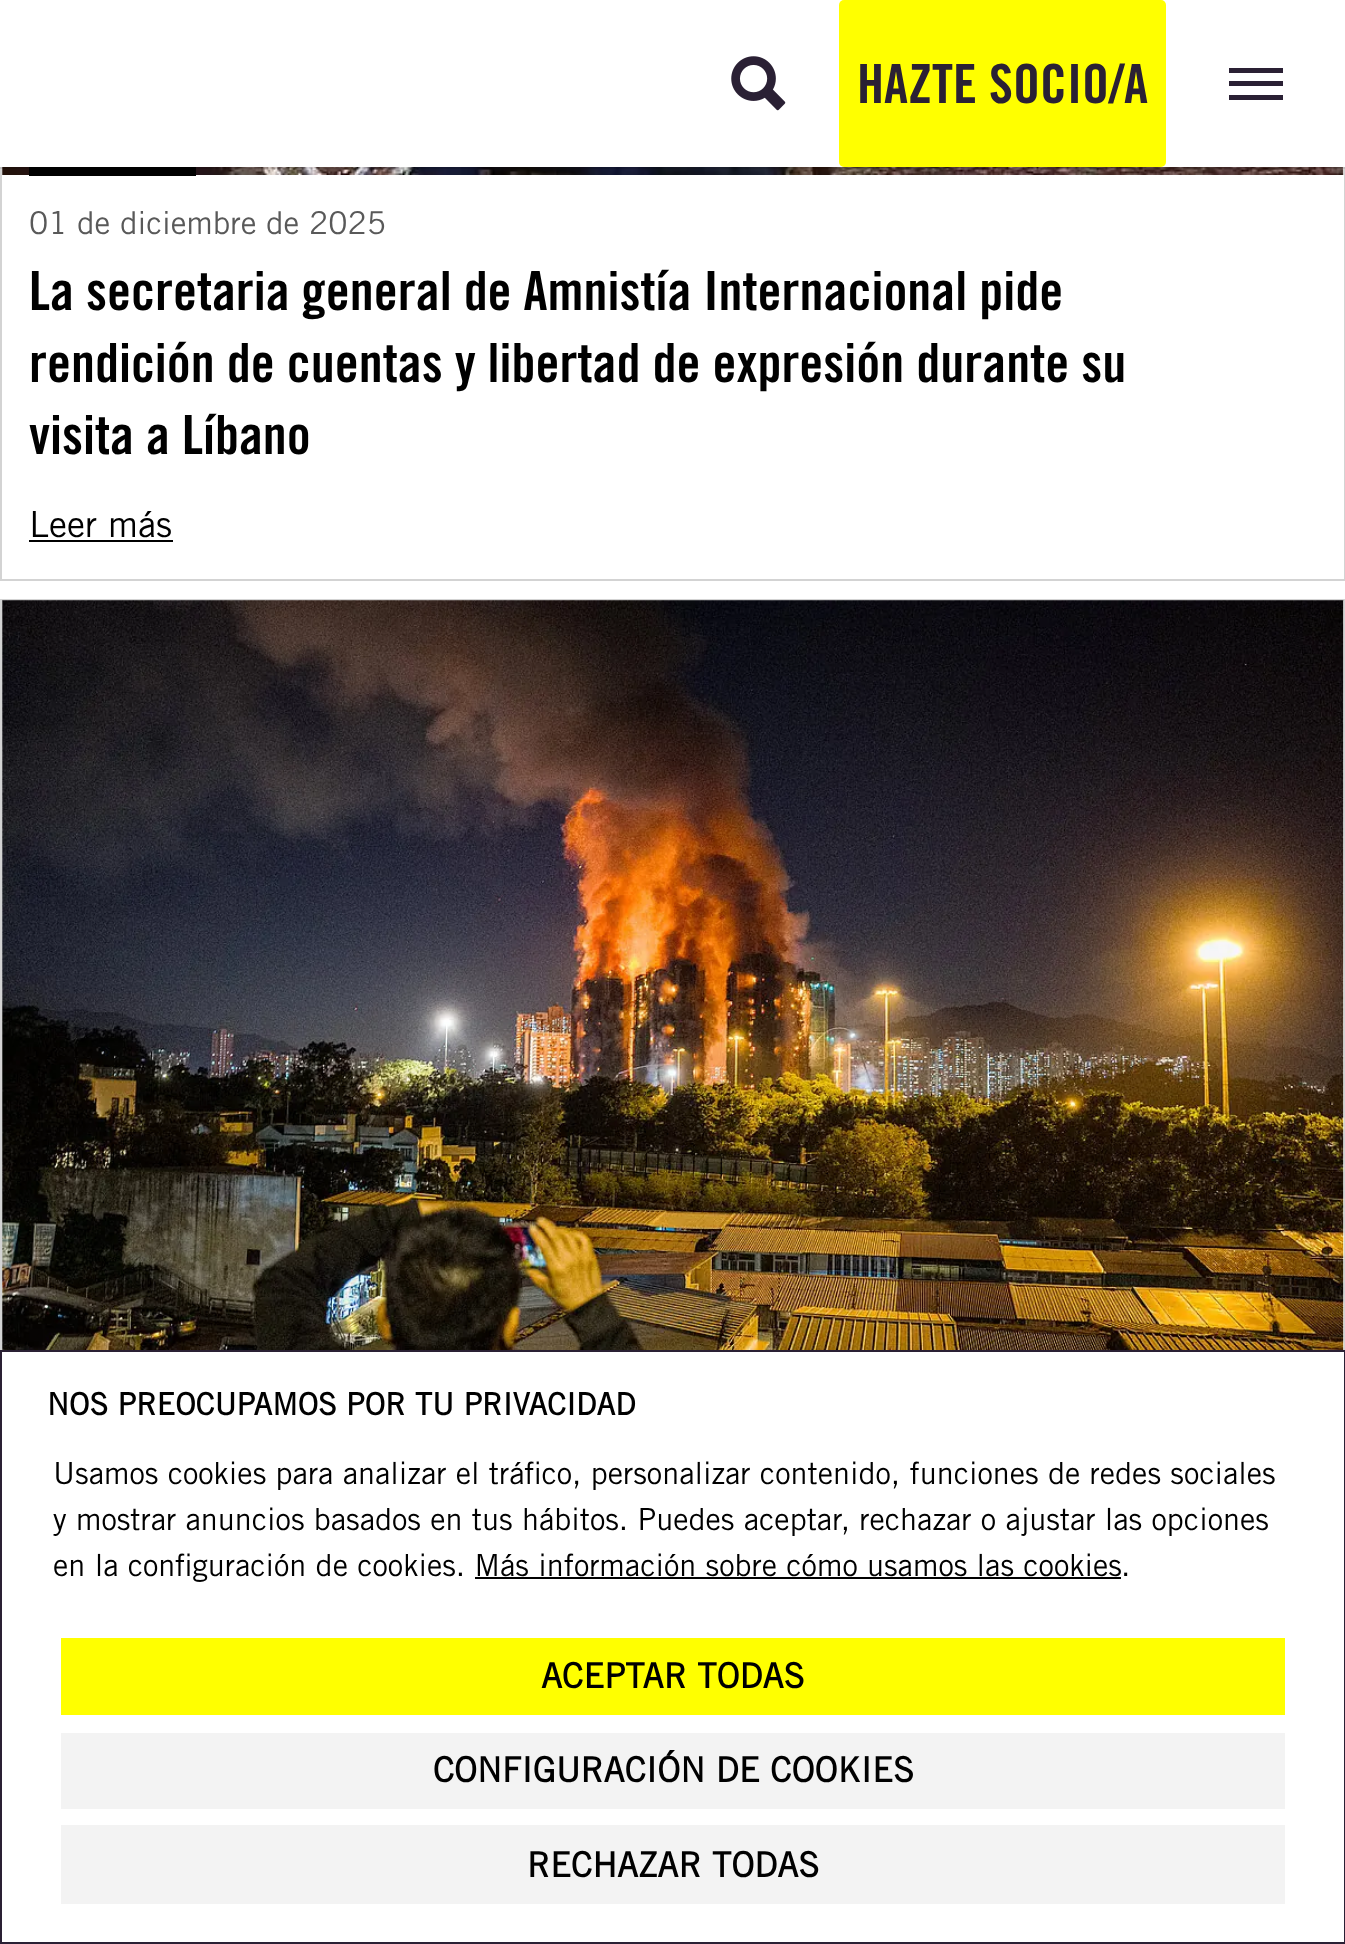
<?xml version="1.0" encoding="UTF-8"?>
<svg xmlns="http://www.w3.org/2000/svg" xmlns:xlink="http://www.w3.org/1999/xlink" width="1345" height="1944">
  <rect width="100%" height="100%" fill="#ffffff" />
  <rect x="1" y="-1" width="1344" height="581" fill="none" stroke="#d3d3d3" stroke-width="2" />
  <image x="2" y="167" width="1342" height="8" xlink:href="image2.png" />
  <rect x="29" y="167" width="167" height="9" fill="#000000" />
  <path d="M 0 166 v 3 h 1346 v -167 v 164 z" fill="#000000" fill-opacity="0.1" />
  <rect width="1345" height="167" fill="#ffffff" />
  <image x="731" y="56" width="55" height="55" xlink:href="image1.png" />
  <rect x="839" width="327" height="167" rx="5" fill="#ffff00" />
  <rect x="1229" y="81" width="54" height="5" fill="#2a2034" />
  <rect x="1229" y="68" width="54" height="5" fill="#2a2034" />
  <rect x="1229" y="95" width="54" height="5" fill="#2a2034" />
  <rect x="29" y="540" width="144" height="2" fill="#000000" />
  <rect x="1" y="600" width="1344" height="1226" fill="none" stroke="#d3d3d3" stroke-width="2" />
  <image x="2" y="600" width="1342" height="750" xlink:href="image3.png" />
  <rect x="2" y="1825" width="1342" height="2" fill="#ffffff" />
  <rect x="1" y="1351" width="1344" height="592" fill="none" stroke="#2a2034" stroke-width="2" />
  <rect x="475" y="1577" width="646" height="2" fill="#000000" />
  <rect x="61" y="1638" width="1224" height="77" fill="#ffff00" />
  <rect x="61" y="1733" width="1224" height="76" fill="#f3f3f3" />
  <rect x="61" y="1825" width="1224" height="79" fill="#f3f3f3" />
  <text x="857" y="103" style="font-family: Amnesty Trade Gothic; font-size: 54px; font-weight: bold; fill: #2a2034">HAZTE SOCIO/A</text>
  <text x="29" y="234" style="font-family: Amnesty Trade Gothic; font-size: 31.5px; fill: #595959">01 de diciembre de 2025</text>
  <text x="29" y="310" style="font-family: Amnesty Trade Gothic; font-size: 54px; font-weight: bold; fill: #000000">La secretaria general de Amnistía Internacional pide</text>
  <text x="29" y="382" style="font-family: Amnesty Trade Gothic; font-size: 54px; font-weight: bold; fill: #000000">rendición de cuentas y libertad de expresión durante su</text>
  <text x="29" y="454" style="font-family: Amnesty Trade Gothic; font-size: 54px; font-weight: bold; fill: #000000">visita a Líbano</text>
  <text x="29" y="537" style="font-family: Amnesty Trade Gothic; font-size: 36px; fill: #000000">Leer más</text>
  <text x="47" y="1415" style="font-family: 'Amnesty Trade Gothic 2'; font-size: 30.6px; font-weight: bold; fill: #000000">NOS PREOCUPAMOS POR TU PRIVACIDAD</text>
  <text x="53" y="1484" style="font-family: Amnesty Trade Gothic; font-size: 30.6px; fill: #000000">Usamos cookies para analizar el tráfico, personalizar contenido, funciones de redes sociales</text>
  <text x="53" y="1530" style="font-family: Amnesty Trade Gothic; font-size: 30.6px; fill: #000000">y mostrar anuncios basados en tus hábitos. Puedes aceptar, rechazar o ajustar las opciones</text>
  <text x="53" y="1576" style="font-family: Amnesty Trade Gothic; font-size: 30.6px; fill: #000000">en la configuración de cookies. Más información sobre cómo usamos las cookies</text>
  <text x="1121" y="1576" style="font-family: Amnesty Trade Gothic; font-size: 30.6px; fill: #000000">.</text>
  <text x="541" y="1688" style="font-family: 'Amnesty Trade Gothic 2'; font-size: 34.5px; font-weight: bold; fill: #000000">ACEPTAR TODAS</text>
  <text x="433" y="1782" style="font-family: 'Amnesty Trade Gothic 2'; font-size: 34.5px; font-weight: bold; fill: #000000">CONFIGURACIÓN DE COOKIES</text>
  <text x="527" y="1877" style="font-family: 'Amnesty Trade Gothic 2'; font-size: 34.5px; font-weight: bold; fill: #000000">RECHAZAR TODAS</text>
</svg>
